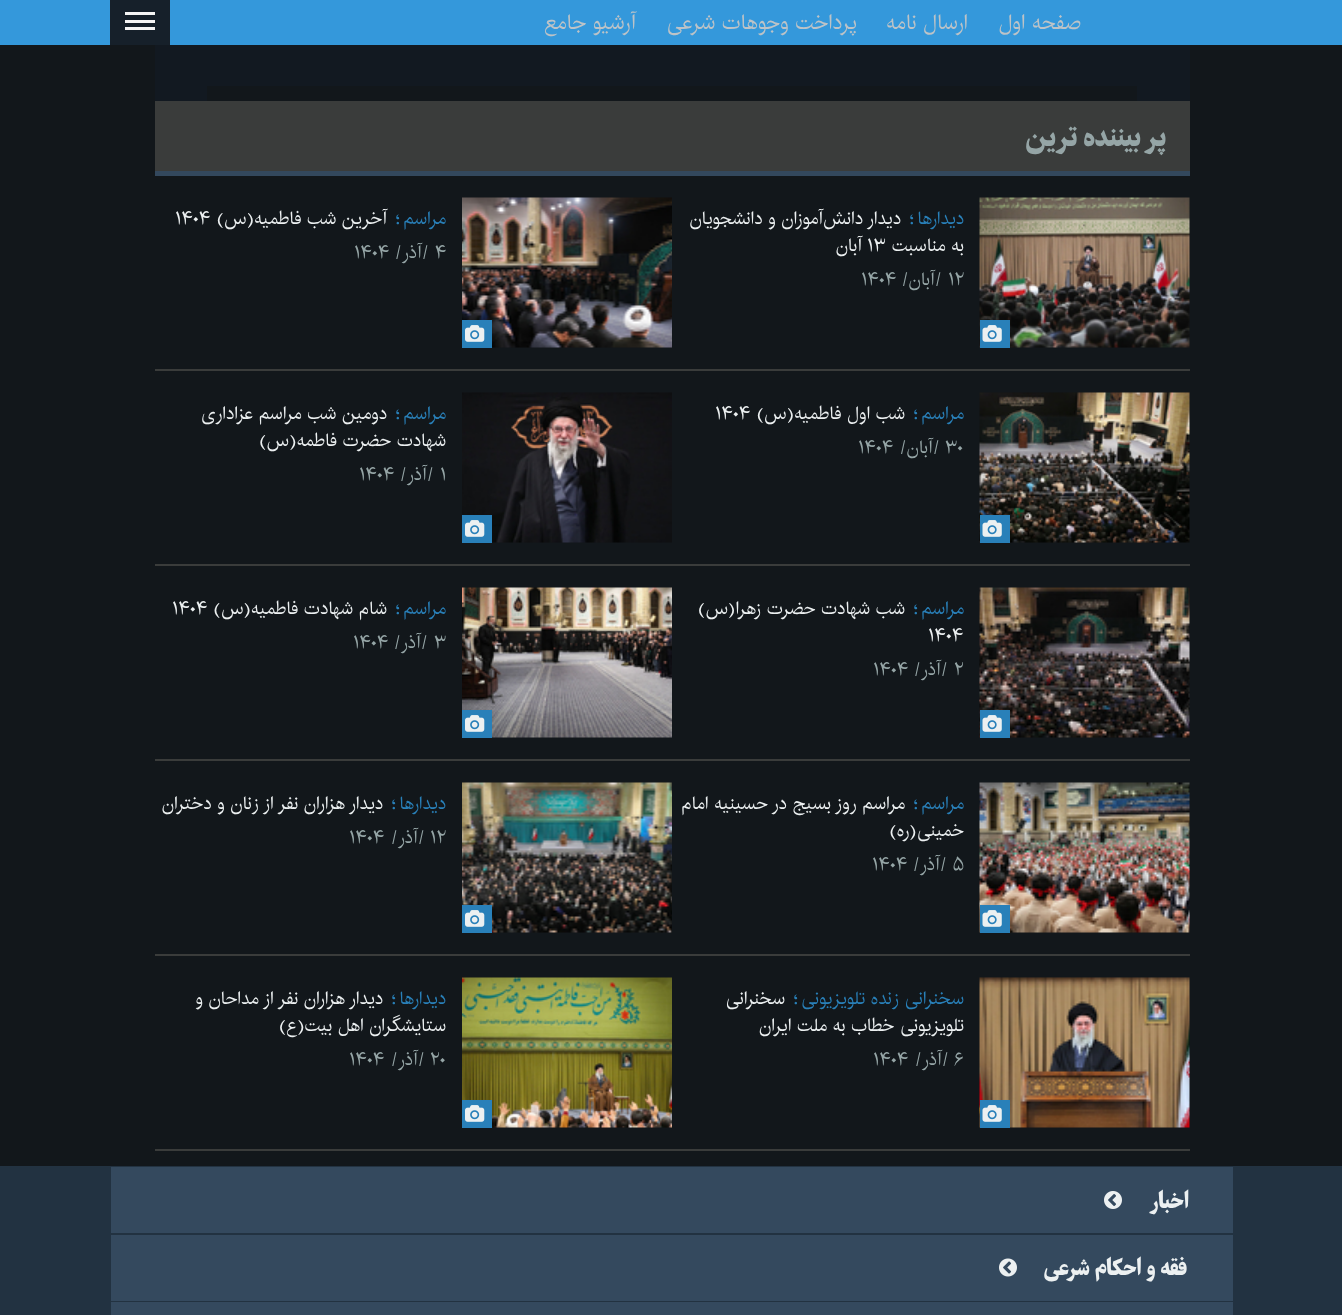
<?xml version="1.0" encoding="UTF-8"?>
<svg xmlns="http://www.w3.org/2000/svg" xmlns:xlink="http://www.w3.org/1999/xlink" width="1342" height="1315">
  <rect width="100%" height="100%" fill="#12171b" />
  <rect width="1342" height="45" fill="#3498db" />
  <rect x="110" width="60" height="45" fill="#16202a" />
  <rect x="125" y="12" width="30" height="3" fill="#f5f5f5" />
  <rect x="125" y="20" width="30" height="3" fill="#f5f5f5" />
  <rect x="125" y="27" width="30" height="3" fill="#f5f5f5" />
  <rect x="207" y="45" width="930" height="41" fill="#121921" />
  <rect x="1137" y="45" width="53" height="56" fill="#121921" />
  <rect x="155" y="45" width="52" height="56" fill="#121921" />
  <rect x="155" y="101" width="1035" height="70" fill="#3a3c3b" />
  <rect x="155" y="171" width="1035" height="5" fill="#33485d" />
  <rect x="155" y="369" width="1035" height="2" fill="#3a3c3b" />
  <image x="979" y="197" width="211" height="151" xlink:href="image1.png" />
  <rect x="980" y="320" width="30" height="28" fill="#2980b9" />
  <image x="982" y="325" width="20" height="17" xlink:href="image2.png" />
  <image x="462" y="197" width="210" height="151" xlink:href="image3.png" />
  <rect x="462" y="320" width="30" height="28" fill="#2980b9" />
  <image x="465" y="325" width="20" height="17" xlink:href="image4.png" />
  <rect x="155" y="564" width="1035" height="2" fill="#3a3c3b" />
  <image x="979" y="392" width="211" height="151" xlink:href="image5.png" />
  <rect x="980" y="515" width="30" height="28" fill="#2980b9" />
  <image x="982" y="520" width="20" height="17" xlink:href="image2.png" />
  <image x="462" y="392" width="210" height="151" xlink:href="image6.png" />
  <rect x="462" y="515" width="30" height="28" fill="#2980b9" />
  <image x="465" y="520" width="20" height="17" xlink:href="image4.png" />
  <rect x="155" y="759" width="1035" height="2" fill="#3a3c3b" />
  <image x="979" y="587" width="211" height="151" xlink:href="image7.png" />
  <rect x="980" y="710" width="30" height="28" fill="#2980b9" />
  <image x="982" y="715" width="20" height="17" xlink:href="image2.png" />
  <image x="462" y="587" width="210" height="151" xlink:href="image8.png" />
  <rect x="462" y="710" width="30" height="28" fill="#2980b9" />
  <image x="465" y="715" width="20" height="17" xlink:href="image4.png" />
  <rect x="155" y="954" width="1035" height="2" fill="#3a3c3b" />
  <image x="979" y="782" width="211" height="151" xlink:href="image9.png" />
  <rect x="980" y="905" width="30" height="28" fill="#2980b9" />
  <image x="982" y="910" width="20" height="17" xlink:href="image2.png" />
  <image x="462" y="782" width="210" height="151" xlink:href="image10.png" />
  <rect x="462" y="905" width="30" height="28" fill="#2980b9" />
  <image x="465" y="910" width="20" height="17" xlink:href="image4.png" />
  <rect x="155" y="1149" width="1035" height="2" fill="#3a3c3b" />
  <image x="979" y="977" width="211" height="151" xlink:href="image11.png" />
  <rect x="980" y="1100" width="30" height="28" fill="#2980b9" />
  <image x="982" y="1105" width="20" height="17" xlink:href="image2.png" />
  <image x="462" y="977" width="210" height="151" xlink:href="image12.png" />
  <rect x="462" y="1100" width="30" height="28" fill="#2980b9" />
  <image x="465" y="1105" width="20" height="17" xlink:href="image4.png" />
  <rect y="1166" width="1342" height="149" fill="#223241" />
  <rect x="111" y="1167" width="1122" height="66" fill="#34495e" />
  <image x="1104" y="1191" width="18" height="18" xlink:href="image13.png" />
  <rect x="111" y="1235" width="1122" height="66" fill="#34495e" />
  <image x="999" y="1258" width="18" height="19" xlink:href="image14.png" />
  <rect x="111" y="1302" width="1122" height="13" fill="#34495e" />
  <text x="1081" y="29" style="font-family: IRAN; font-size: 21px; direction: rtl; fill: #bdc3c7">صفحه اول</text>
  <text x="968" y="29" style="font-family: IRAN; font-size: 21px; direction: rtl; fill: #bdc3c7">ارسال نامه</text>
  <text x="857" y="29" style="font-family: IRAN; font-size: 21px; direction: rtl; fill: #bdc3c7">پرداخت وجوهات شرعی</text>
  <text x="636" y="29" style="font-family: IRAN; font-size: 21px; direction: rtl; fill: #bdc3c7">آرشیو جامع</text>
  <text x="1166" y="146" style="font-family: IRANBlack; font-size: 27px; font-weight: 900; direction: rtl; fill: #95a5a6">پر بیننده ترین</text>
  <text x="964" y="224" style="font-family: IRAN; font-size: 18px; direction: rtl; fill: #2980b9">ديدارها</text>
  <text x="914" y="224" style="font-family: IRAN; font-size: 18px; direction: rtl; fill: #2980b9">؛</text>
  <text x="901" y="224" style="font-family: IRAN; font-size: 18px; direction: rtl; fill: #ecf0f1">دیدار دانش‌آموزان و دانشجویان</text>
  <text x="964" y="251" style="font-family: IRAN; font-size: 18px; direction: rtl; fill: #ecf0f1">به مناسبت</text>
  <text x="867" y="251" style="font-family: IRAN; font-size: 18px; fill: #ecf0f1">۱۳</text>
  <text x="862" y="251" style="font-family: IRAN; font-size: 18px; direction: rtl; fill: #ecf0f1">آبان</text>
  <text x="948" y="285" style="font-family: IRAN; font-size: 18px; fill: #95a5a6">۱۲</text>
  <text x="942" y="285" style="font-family: IRAN; font-size: 18px; direction: rtl; fill: #95a5a6">/آبان/</text>
  <text x="861" y="285" style="font-family: IRAN; font-size: 18px; fill: #95a5a6">۱۴۰۴</text>
  <text x="446" y="224" style="font-family: IRAN; font-size: 18px; direction: rtl; fill: #2980b9">مراسم</text>
  <text x="400" y="224" style="font-family: IRAN; font-size: 18px; direction: rtl; fill: #2980b9">؛</text>
  <text x="387" y="224" style="font-family: IRAN; font-size: 18px; direction: rtl; fill: #ecf0f1">آخرین شب فاطمیه(س)</text>
  <text x="175" y="224" style="font-family: IRAN; font-size: 18px; fill: #ecf0f1">۱۴۰۴</text>
  <text x="435" y="258" style="font-family: IRAN; font-size: 18px; fill: #95a5a6">۴</text>
  <text x="429" y="258" style="font-family: IRAN; font-size: 18px; direction: rtl; fill: #95a5a6">/آذر/</text>
  <text x="354" y="258" style="font-family: IRAN; font-size: 18px; fill: #95a5a6">۱۴۰۴</text>
  <text x="964" y="419" style="font-family: IRAN; font-size: 18px; direction: rtl; fill: #2980b9">مراسم</text>
  <text x="918" y="419" style="font-family: IRAN; font-size: 18px; direction: rtl; fill: #2980b9">؛</text>
  <text x="905" y="419" style="font-family: IRAN; font-size: 18px; direction: rtl; fill: #ecf0f1">شب اول فاطمیه(س)</text>
  <text x="715" y="419" style="font-family: IRAN; font-size: 18px; fill: #ecf0f1">۱۴۰۴</text>
  <text x="945" y="453" style="font-family: IRAN; font-size: 18px; fill: #95a5a6">۳۰</text>
  <text x="940" y="453" style="font-family: IRAN; font-size: 18px; direction: rtl; fill: #95a5a6">/آبان/</text>
  <text x="858" y="453" style="font-family: IRAN; font-size: 18px; fill: #95a5a6">۱۴۰۴</text>
  <text x="446" y="419" style="font-family: IRAN; font-size: 18px; direction: rtl; fill: #2980b9">مراسم</text>
  <text x="400" y="419" style="font-family: IRAN; font-size: 18px; direction: rtl; fill: #2980b9">؛</text>
  <text x="387" y="419" style="font-family: IRAN; font-size: 18px; direction: rtl; fill: #ecf0f1">دومین شب مراسم عزاداری</text>
  <text x="446" y="446" style="font-family: IRAN; font-size: 18px; direction: rtl; fill: #ecf0f1">شهادت حضرت فاطمه(س)</text>
  <text x="440" y="480" style="font-family: IRAN; font-size: 18px; fill: #95a5a6">۱</text>
  <text x="434" y="480" style="font-family: IRAN; font-size: 18px; direction: rtl; fill: #95a5a6">/آذر/</text>
  <text x="359" y="480" style="font-family: IRAN; font-size: 18px; fill: #95a5a6">۱۴۰۴</text>
  <text x="964" y="614" style="font-family: IRAN; font-size: 18px; direction: rtl; fill: #2980b9">مراسم</text>
  <text x="918" y="614" style="font-family: IRAN; font-size: 18px; direction: rtl; fill: #2980b9">؛</text>
  <text x="905" y="614" style="font-family: IRAN; font-size: 18px; direction: rtl; fill: #ecf0f1">شب شهادت حضرت زهرا(س)</text>
  <text x="928" y="641" style="font-family: IRAN; font-size: 18px; fill: #ecf0f1">۱۴۰۴</text>
  <text x="954" y="675" style="font-family: IRAN; font-size: 18px; fill: #95a5a6">۲</text>
  <text x="948" y="675" style="font-family: IRAN; font-size: 18px; direction: rtl; fill: #95a5a6">/آذر/</text>
  <text x="873" y="675" style="font-family: IRAN; font-size: 18px; fill: #95a5a6">۱۴۰۴</text>
  <text x="446" y="614" style="font-family: IRAN; font-size: 18px; direction: rtl; fill: #2980b9">مراسم</text>
  <text x="400" y="614" style="font-family: IRAN; font-size: 18px; direction: rtl; fill: #2980b9">؛</text>
  <text x="387" y="614" style="font-family: IRAN; font-size: 18px; direction: rtl; fill: #ecf0f1">شام شهادت فاطمیه(س)</text>
  <text x="172" y="614" style="font-family: IRAN; font-size: 18px; fill: #ecf0f1">۱۴۰۴</text>
  <text x="434" y="648" style="font-family: IRAN; font-size: 18px; fill: #95a5a6">۳</text>
  <text x="428" y="648" style="font-family: IRAN; font-size: 18px; direction: rtl; fill: #95a5a6">/آذر/</text>
  <text x="353" y="648" style="font-family: IRAN; font-size: 18px; fill: #95a5a6">۱۴۰۴</text>
  <text x="964" y="809" style="font-family: IRAN; font-size: 18px; direction: rtl; fill: #2980b9">مراسم</text>
  <text x="918" y="809" style="font-family: IRAN; font-size: 18px; direction: rtl; fill: #2980b9">؛</text>
  <text x="905" y="809" style="font-family: IRAN; font-size: 18px; direction: rtl; fill: #ecf0f1">مراسم روز بسیج در حسینیه امام</text>
  <text x="964" y="836" style="font-family: IRAN; font-size: 18px; direction: rtl; fill: #ecf0f1">خمینی(ره)</text>
  <text x="953" y="870" style="font-family: IRAN; font-size: 18px; fill: #95a5a6">۵</text>
  <text x="947" y="870" style="font-family: IRAN; font-size: 18px; direction: rtl; fill: #95a5a6">/آذر/</text>
  <text x="872" y="870" style="font-family: IRAN; font-size: 18px; fill: #95a5a6">۱۴۰۴</text>
  <text x="446" y="809" style="font-family: IRAN; font-size: 18px; direction: rtl; fill: #2980b9">ديدارها</text>
  <text x="396" y="809" style="font-family: IRAN; font-size: 18px; direction: rtl; fill: #2980b9">؛</text>
  <text x="383" y="809" style="font-family: IRAN; font-size: 18px; direction: rtl; fill: #ecf0f1">دیدار هزاران نفر از زنان و دختران</text>
  <text x="430" y="843" style="font-family: IRAN; font-size: 18px; fill: #95a5a6">۱۲</text>
  <text x="425" y="843" style="font-family: IRAN; font-size: 18px; direction: rtl; fill: #95a5a6">/آذر/</text>
  <text x="349" y="843" style="font-family: IRAN; font-size: 18px; fill: #95a5a6">۱۴۰۴</text>
  <text x="964" y="1004" style="font-family: IRAN; font-size: 18px; direction: rtl; fill: #2980b9">سخنرانی زنده تلویزیونی</text>
  <text x="798" y="1004" style="font-family: IRAN; font-size: 18px; direction: rtl; fill: #2980b9">؛</text>
  <text x="785" y="1004" style="font-family: IRAN; font-size: 18px; direction: rtl; fill: #ecf0f1">سخنرانی</text>
  <text x="964" y="1031" style="font-family: IRAN; font-size: 18px; direction: rtl; fill: #ecf0f1">تلویزیونی خطاب به ملت ایران</text>
  <text x="954" y="1065" style="font-family: IRAN; font-size: 18px; fill: #95a5a6">۶</text>
  <text x="949" y="1065" style="font-family: IRAN; font-size: 18px; direction: rtl; fill: #95a5a6">/آذر/</text>
  <text x="873" y="1065" style="font-family: IRAN; font-size: 18px; fill: #95a5a6">۱۴۰۴</text>
  <text x="446" y="1004" style="font-family: IRAN; font-size: 18px; direction: rtl; fill: #2980b9">ديدارها</text>
  <text x="396" y="1004" style="font-family: IRAN; font-size: 18px; direction: rtl; fill: #2980b9">؛</text>
  <text x="383" y="1004" style="font-family: IRAN; font-size: 18px; direction: rtl; fill: #ecf0f1">دیدار هزاران نفر از مداحان و</text>
  <text x="446" y="1031" style="font-family: IRAN; font-size: 18px; direction: rtl; fill: #ecf0f1">ستایشگران اهل بیت(ع)</text>
  <text x="430" y="1065" style="font-family: IRAN; font-size: 18px; fill: #95a5a6">۲۰</text>
  <text x="425" y="1065" style="font-family: IRAN; font-size: 18px; direction: rtl; fill: #95a5a6">/آذر/</text>
  <text x="349" y="1065" style="font-family: IRAN; font-size: 18px; fill: #95a5a6">۱۴۰۴</text>
  <text x="1189" y="1208" style="font-family: IRANBlack; font-size: 21px; font-weight: 900; direction: rtl; fill: #ecf0f1">اخبار</text>
  <text x="1187" y="1275" style="font-family: IRANBlack; font-size: 21px; font-weight: 900; direction: rtl; fill: #ecf0f1">فقه و احکام شرعی</text>
</svg>
